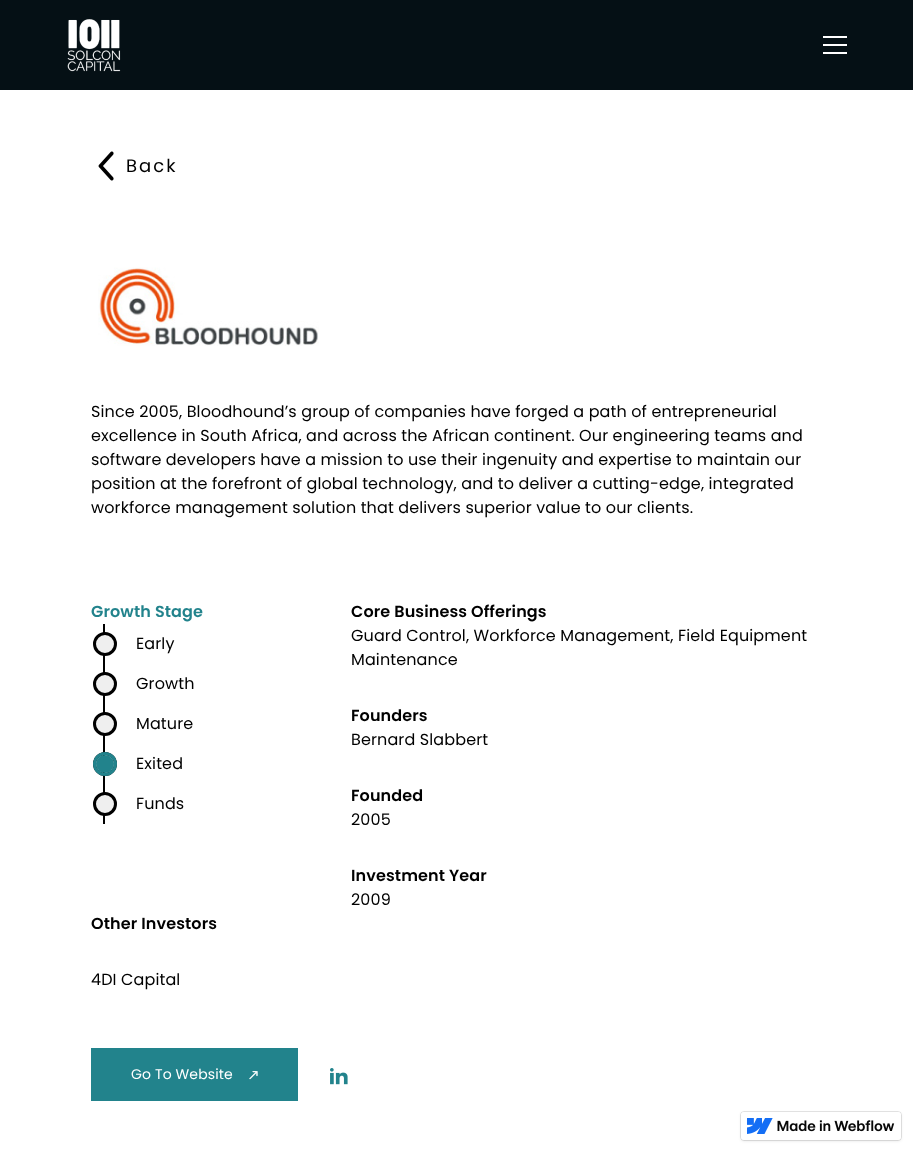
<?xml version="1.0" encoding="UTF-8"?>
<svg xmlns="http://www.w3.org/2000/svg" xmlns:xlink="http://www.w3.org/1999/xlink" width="913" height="1152">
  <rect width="100%" height="100%" fill="#ffffff" />
  <rect width="913" height="90" fill="#051015" />
  <image x="67" y="19" width="54" height="53" xlink:href="image1.png" />
  <rect x="823" y="36" width="24" height="2" fill="#ffffff" />
  <rect x="823" y="44" width="24" height="2" fill="#ffffff" />
  <rect x="823" y="52" width="24" height="2" fill="#ffffff" />
  <image x="98" y="151" width="16" height="30" xlink:href="image2.png" />
  <image x="98" y="267" width="221" height="79" xlink:href="image3.png" />
  <rect x="103" y="624" width="2" height="200" fill="#000000" />
  <circle cx="105" cy="644" r="10.5" fill="#efefef" stroke="#000000" stroke-width="3" />
  <circle cx="105" cy="684" r="10.5" fill="#efefef" stroke="#000000" stroke-width="3" />
  <circle cx="105" cy="724" r="10.5" fill="#efefef" stroke="#000000" stroke-width="3" />
  <circle cx="105" cy="764" r="10.5" fill="none" stroke="#000000" stroke-width="3" />
  <circle cx="105" cy="764" r="10.5" fill="none" stroke="#22838c" stroke-width="3" />
  <circle cx="105" cy="764" r="9" fill="#22838c" />
  <circle cx="105" cy="804" r="10.5" fill="#efefef" stroke="#000000" stroke-width="3" />
  <rect x="91" y="1048" width="207" height="53" fill="#22838c" />
  <image x="249" y="1071" width="9" height="9" xlink:href="image4.png" />
  <image x="330" y="1068" width="18" height="17" xlink:href="image5.png" />
  <rect x="741" y="1113" width="160" height="28" rx="3" fill="#000000" fill-opacity="0.1" filter="blur(1.5px)" />
  <rect x="740.5" y="1111.5" width="161" height="29" rx="3.5" fill="none" stroke="#000000" stroke-opacity="0.1" />
  <rect x="741" y="1112" width="160" height="28" rx="3" fill="#ffffff" />
  <image x="747" y="1118" width="26" height="16" xlink:href="image6.png" />
  <image x="777" y="1120" width="118" height="12" xlink:href="image7.png" />
  <text x="126" y="172" style="font-family: Poppins; font-size: 18px; letter-spacing: 2px; fill: #000000">Back</text>
  <text x="91" y="417" style="font-family: Poppins; font-size: 16px; letter-spacing: 0.12px; fill: #000000">Since 2005, Bloodhound’s group of companies have forged a path of entrepreneurial</text>
  <text x="91" y="441" style="font-family: Poppins; font-size: 16px; letter-spacing: 0.12px; fill: #000000">excellence in South Africa, and across the African continent. Our engineering teams and</text>
  <text x="91" y="465" style="font-family: Poppins; font-size: 16px; letter-spacing: 0.12px; fill: #000000">software developers have a mission to use their ingenuity and expertise to maintain our</text>
  <text x="91" y="489" style="font-family: Poppins; font-size: 16px; letter-spacing: 0.12px; fill: #000000">position at the forefront of global technology, and to deliver a cutting-edge, integrated</text>
  <text x="91" y="513" style="font-family: Poppins; font-size: 16px; letter-spacing: 0.12px; fill: #000000">workforce management solution that delivers superior value to our clients.</text>
  <text x="91" y="617" style="font-family: Poppins; font-size: 16px; font-weight: 600; letter-spacing: 0.12px; fill: #22838c">Growth Stage</text>
  <text x="136" y="649" style="font-family: Poppins; font-size: 16px; letter-spacing: 0.12px; fill: #000000">Early</text>
  <text x="136" y="689" style="font-family: Poppins; font-size: 16px; letter-spacing: 0.12px; fill: #000000">Growth</text>
  <text x="136" y="729" style="font-family: Poppins; font-size: 16px; letter-spacing: 0.12px; fill: #000000">Mature</text>
  <text x="136" y="769" style="font-family: Poppins; font-size: 16px; letter-spacing: 0.12px; fill: #000000">Exited</text>
  <text x="136" y="809" style="font-family: Poppins; font-size: 16px; letter-spacing: 0.12px; fill: #000000">Funds</text>
  <text x="351" y="617" style="font-family: Poppins; font-size: 16px; font-weight: 600; letter-spacing: 0.12px; fill: #000000">Core Business Offerings</text>
  <text x="351" y="641" style="font-family: Poppins; font-size: 16px; letter-spacing: 0.12px; fill: #000000">Guard Control, Workforce Management, Field Equipment</text>
  <text x="351" y="665" style="font-family: Poppins; font-size: 16px; letter-spacing: 0.12px; fill: #000000">Maintenance</text>
  <text x="351" y="721" style="font-family: Poppins; font-size: 16px; font-weight: 600; letter-spacing: 0.12px; fill: #000000">Founders</text>
  <text x="351" y="745" style="font-family: Poppins; font-size: 16px; letter-spacing: 0.12px; fill: #000000">Bernard Slabbert</text>
  <text x="351" y="801" style="font-family: Poppins; font-size: 16px; font-weight: 600; letter-spacing: 0.12px; fill: #000000">Founded</text>
  <text x="351" y="825" style="font-family: Poppins; font-size: 16px; letter-spacing: 0.12px; fill: #000000">2005</text>
  <text x="351" y="881" style="font-family: Poppins; font-size: 16px; font-weight: 600; letter-spacing: 0.12px; fill: #000000">Investment Year</text>
  <text x="351" y="905" style="font-family: Poppins; font-size: 16px; letter-spacing: 0.12px; fill: #000000">2009</text>
  <text x="91" y="929" style="font-family: Poppins; font-size: 16px; font-weight: 600; letter-spacing: 0.12px; fill: #000000">Other Investors</text>
  <text x="91" y="985" style="font-family: Poppins; font-size: 16px; letter-spacing: 0.12px; fill: #000000">4DI Capital</text>
  <text x="131" y="1079" style="font-family: Poppins; font-size: 14px; letter-spacing: 0.12px; fill: #ffffff">Go To Website</text>
</svg>
